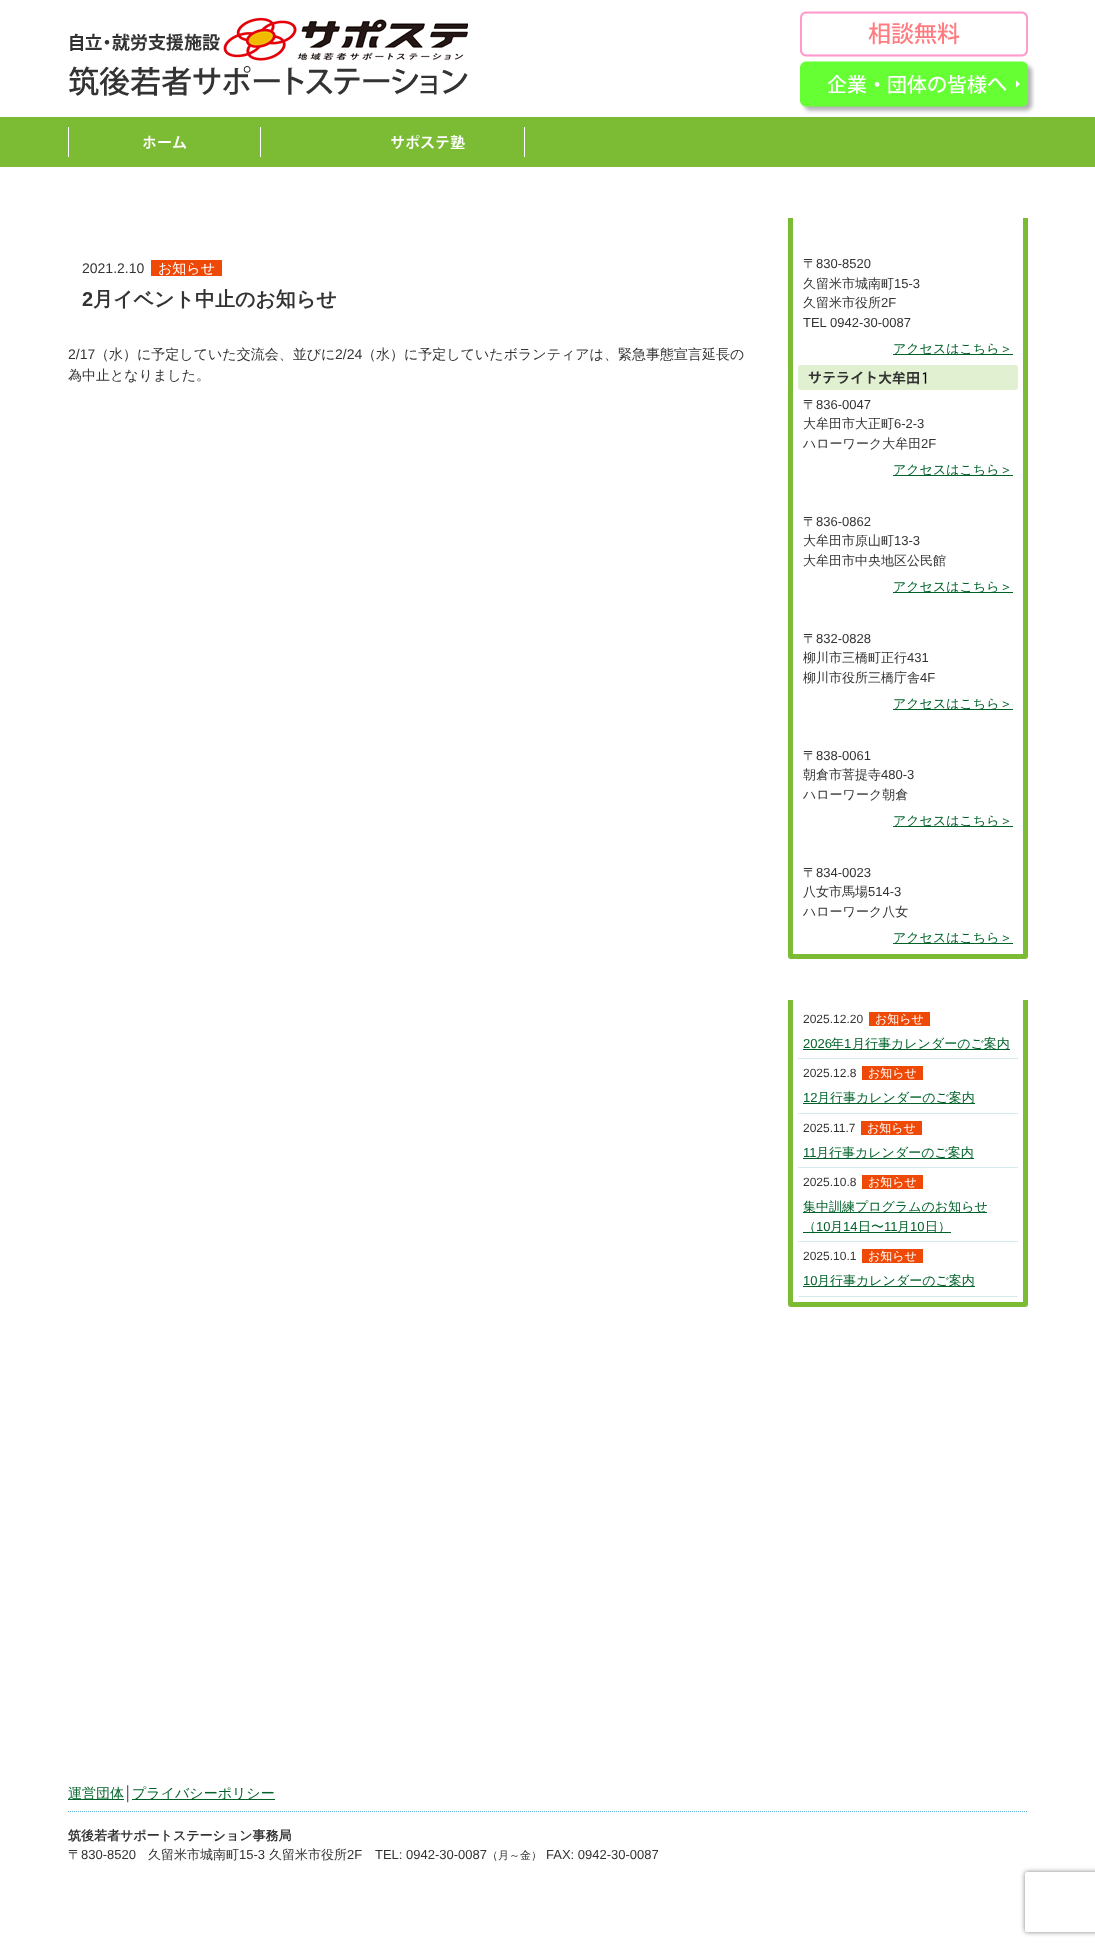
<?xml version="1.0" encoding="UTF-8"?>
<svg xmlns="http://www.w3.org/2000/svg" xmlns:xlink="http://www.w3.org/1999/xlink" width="1095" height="1946">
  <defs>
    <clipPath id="clip1"><path d="M 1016 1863 h 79 v 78 h -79 z m 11 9 h 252 c 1 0 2 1 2 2 v 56 c 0 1 -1 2 -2 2 h -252 c -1 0 -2 -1 -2 -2 v -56 c 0 -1 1 -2 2 -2 z" clip-rule="evenodd" /></clipPath>
  </defs>
  <rect width="100%" height="100%" fill="#ffffff" />
  <rect y="117" width="1095" height="50" fill="#7cbc34" />
  <image x="69" y="17" width="399" height="79" xlink:href="image1.png" />
  <image x="800" y="11" width="228" height="46" xlink:href="image2.png" />
  <image x="800" y="61" width="235" height="53" xlink:href="image3.png" />
  <image x="68" y="127" width="193" height="30" xlink:href="image4.png" />
  <image x="391" y="127" width="134" height="30" xlink:href="image5.png" />
  <rect x="151" y="260" width="71" height="16" fill="#ef4907" />
  <path d="M 788 218 h 240 v 738 c 0 2 -1 3 -3 3 h -234 c -2 0 -3 -1 -3 -3 z m 5 0 h 230 v 736 h -230 z" fill="#7cbc34" fill-rule="evenodd" />
  <rect x="893" y="354" width="120" height="1" fill="#016229" />
  <image x="798" y="365" width="220" height="25" xlink:href="image6.png" />
  <rect x="893" y="475" width="120" height="1" fill="#016229" />
  <rect x="893" y="592" width="120" height="1" fill="#016229" />
  <rect x="893" y="709" width="120" height="1" fill="#016229" />
  <rect x="893" y="826" width="120" height="1" fill="#016229" />
  <rect x="893" y="943" width="120" height="1" fill="#016229" />
  <path d="M 788 1000 h 240 v 304 c 0 2 -1 3 -3 3 h -234 c -2 0 -3 -1 -3 -3 z m 5 0 h 230 v 302 h -230 z" fill="#7cbc34" fill-rule="evenodd" />
  <rect x="869" y="1012" width="61" height="14" fill="#ef4907" />
  <rect x="798" y="1058" width="220" height="1" fill="#d5eaef" />
  <rect x="803" y="1049" width="207" height="1" fill="#016229" />
  <rect x="862" y="1066" width="61" height="14" fill="#ef4907" />
  <rect x="798" y="1113" width="220" height="1" fill="#d5eaef" />
  <rect x="803" y="1103" width="172" height="1" fill="#016229" />
  <rect x="861" y="1121" width="61" height="14" fill="#ef4907" />
  <rect x="798" y="1167" width="220" height="1" fill="#d5eaef" />
  <rect x="803" y="1158" width="171" height="1" fill="#016229" />
  <rect x="862" y="1175" width="61" height="14" fill="#ef4907" />
  <rect x="798" y="1241" width="220" height="1" fill="#d5eaef" />
  <rect x="803" y="1212" width="184" height="1" fill="#016229" />
  <rect x="803" y="1232" width="148" height="1" fill="#016229" />
  <rect x="862" y="1249" width="61" height="14" fill="#ef4907" />
  <rect x="798" y="1296" width="220" height="1" fill="#d5eaef" />
  <rect x="803" y="1286" width="172" height="1" fill="#016229" />
  <path d="M 68 1811.5 h 960" fill="none" stroke="#59b0d2" stroke-dasharray="1 1" />
  <rect x="68" y="1799" width="56" height="1" fill="#016229" />
  <rect x="132" y="1799" width="143" height="1" fill="#016229" />
  <g clip-path="url(#clip1)">
    <rect x="1025" y="1872" width="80" height="60" rx="2" fill="#808080" filter="blur(2.5px)" />
  </g>
  <text x="82" y="273" style="font-family: Liberation Sans; font-size: 14px; fill: #333333">2021.2.10</text>
  <text x="158" y="273" style="font-family: WenQuanYi Zen Hei; font-size: 14px; font-weight: 500; fill: #ffffff">お知らせ</text>
  <text x="82" y="306" style="font-family: Liberation Sans; font-size: 20px; font-weight: bold; fill: #333333">2</text>
  <text x="93" y="306" style="font-family: WenQuanYi Zen Hei; font-size: 20px; font-weight: bold; fill: #333333">月イベント中止のお知らせ</text>
  <text x="68" y="359" style="font-family: Liberation Sans; font-size: 14px; fill: #333333">2/17</text>
  <text x="95" y="359" style="font-family: WenQuanYi Zen Hei; font-size: 14px; font-weight: 500; fill: #333333">（水）に予定していた交流会、並びに</text>
  <text x="335" y="359" style="font-family: Liberation Sans; font-size: 14px; fill: #333333">2/24</text>
  <text x="362" y="359" style="font-family: WenQuanYi Zen Hei; font-size: 14px; font-weight: 500; fill: #333333">（水）に予定していたボランティアは、緊急事態宣言延長の</text>
  <text x="68" y="380" style="font-family: WenQuanYi Zen Hei; font-size: 14px; font-weight: 500; fill: #333333">為中止となりました。</text>
  <text x="803" y="268" style="font-family: WenQuanYi Zen Hei; font-size: 13px; font-weight: 500; fill: #333333">〒</text>
  <text x="816" y="268" style="font-family: Liberation Sans; font-size: 13px; fill: #333333">830-8520</text>
  <text x="803" y="288" style="font-family: WenQuanYi Zen Hei; font-size: 13px; font-weight: 500; fill: #333333">久留米市城南町</text>
  <text x="894" y="288" style="font-family: Liberation Sans; font-size: 13px; fill: #333333">15-3</text>
  <text x="803" y="307" style="font-family: WenQuanYi Zen Hei; font-size: 13px; font-weight: 500; fill: #333333">久留米市役所</text>
  <text x="881" y="307" style="font-family: Liberation Sans; font-size: 13px; fill: #333333">2F</text>
  <text x="803" y="327" style="font-family: Liberation Sans; font-size: 13px; fill: #333333">TEL 0942-30-0087</text>
  <text x="893" y="353" style="font-family: WenQuanYi Zen Hei; font-size: 13px; font-weight: 500; fill: #016229">アクセスはこちら＞</text>
  <text x="803" y="409" style="font-family: WenQuanYi Zen Hei; font-size: 13px; font-weight: 500; fill: #333333">〒</text>
  <text x="816" y="409" style="font-family: Liberation Sans; font-size: 13px; fill: #333333">836-0047</text>
  <text x="803" y="428" style="font-family: WenQuanYi Zen Hei; font-size: 13px; font-weight: 500; fill: #333333">大牟田市大正町</text>
  <text x="894" y="428" style="font-family: Liberation Sans; font-size: 13px; fill: #333333">6-2-3</text>
  <text x="803" y="448" style="font-family: WenQuanYi Zen Hei; font-size: 13px; font-weight: 500; fill: #333333">ハローワーク大牟田</text>
  <text x="921" y="448" style="font-family: Liberation Sans; font-size: 13px; fill: #333333">2F</text>
  <text x="893" y="474" style="font-family: WenQuanYi Zen Hei; font-size: 13px; font-weight: 500; fill: #016229">アクセスはこちら＞</text>
  <text x="803" y="526" style="font-family: WenQuanYi Zen Hei; font-size: 13px; font-weight: 500; fill: #333333">〒</text>
  <text x="816" y="526" style="font-family: Liberation Sans; font-size: 13px; fill: #333333">836-0862</text>
  <text x="803" y="545" style="font-family: WenQuanYi Zen Hei; font-size: 13px; font-weight: 500; fill: #333333">大牟田市原山町</text>
  <text x="894" y="545" style="font-family: Liberation Sans; font-size: 13px; fill: #333333">13-3</text>
  <text x="803" y="565" style="font-family: WenQuanYi Zen Hei; font-size: 13px; font-weight: 500; fill: #333333">大牟田市中央地区公民館</text>
  <text x="893" y="591" style="font-family: WenQuanYi Zen Hei; font-size: 13px; font-weight: 500; fill: #016229">アクセスはこちら＞</text>
  <text x="803" y="643" style="font-family: WenQuanYi Zen Hei; font-size: 13px; font-weight: 500; fill: #333333">〒</text>
  <text x="816" y="643" style="font-family: Liberation Sans; font-size: 13px; fill: #333333">832-0828</text>
  <text x="803" y="662" style="font-family: WenQuanYi Zen Hei; font-size: 13px; font-weight: 500; fill: #333333">柳川市三橋町正行</text>
  <text x="907" y="662" style="font-family: Liberation Sans; font-size: 13px; fill: #333333">431</text>
  <text x="803" y="682" style="font-family: WenQuanYi Zen Hei; font-size: 13px; font-weight: 500; fill: #333333">柳川市役所三橋庁舎</text>
  <text x="920" y="682" style="font-family: Liberation Sans; font-size: 13px; fill: #333333">4F</text>
  <text x="893" y="708" style="font-family: WenQuanYi Zen Hei; font-size: 13px; font-weight: 500; fill: #016229">アクセスはこちら＞</text>
  <text x="803" y="760" style="font-family: WenQuanYi Zen Hei; font-size: 13px; font-weight: 500; fill: #333333">〒</text>
  <text x="816" y="760" style="font-family: Liberation Sans; font-size: 13px; fill: #333333">838-0061</text>
  <text x="803" y="779" style="font-family: WenQuanYi Zen Hei; font-size: 13px; font-weight: 500; fill: #333333">朝倉市菩提寺</text>
  <text x="881" y="779" style="font-family: Liberation Sans; font-size: 13px; fill: #333333">480-3</text>
  <text x="803" y="799" style="font-family: WenQuanYi Zen Hei; font-size: 13px; font-weight: 500; fill: #333333">ハローワーク朝倉</text>
  <text x="893" y="825" style="font-family: WenQuanYi Zen Hei; font-size: 13px; font-weight: 500; fill: #016229">アクセスはこちら＞</text>
  <text x="803" y="877" style="font-family: WenQuanYi Zen Hei; font-size: 13px; font-weight: 500; fill: #333333">〒</text>
  <text x="816" y="877" style="font-family: Liberation Sans; font-size: 13px; fill: #333333">834-0023</text>
  <text x="803" y="896" style="font-family: WenQuanYi Zen Hei; font-size: 13px; font-weight: 500; fill: #333333">八女市馬場</text>
  <text x="868" y="896" style="font-family: Liberation Sans; font-size: 13px; fill: #333333">514-3</text>
  <text x="803" y="916" style="font-family: WenQuanYi Zen Hei; font-size: 13px; font-weight: 500; fill: #333333">ハローワーク八女</text>
  <text x="893" y="942" style="font-family: WenQuanYi Zen Hei; font-size: 13px; font-weight: 500; fill: #016229">アクセスはこちら＞</text>
  <text x="803" y="1023" style="font-family: Liberation Sans; font-size: 12px; fill: #333333">2025.12.20</text>
  <text x="875" y="1023" style="font-family: WenQuanYi Zen Hei; font-size: 12px; font-weight: 500; fill: #ffffff">お知らせ</text>
  <text x="803" y="1048" style="font-family: Liberation Sans; font-size: 13px; fill: #016229">2026</text>
  <text x="831" y="1048" style="font-family: WenQuanYi Zen Hei; font-size: 13px; font-weight: 500; fill: #016229">年</text>
  <text x="844" y="1048" style="font-family: Liberation Sans; font-size: 13px; fill: #016229">1</text>
  <text x="852" y="1048" style="font-family: WenQuanYi Zen Hei; font-size: 13px; font-weight: 500; fill: #016229">月行事カレンダーのご案内</text>
  <text x="803" y="1077" style="font-family: Liberation Sans; font-size: 12px; fill: #333333">2025.12.8</text>
  <text x="868" y="1077" style="font-family: WenQuanYi Zen Hei; font-size: 12px; font-weight: 500; fill: #ffffff">お知らせ</text>
  <text x="803" y="1102" style="font-family: Liberation Sans; font-size: 13px; fill: #016229">12</text>
  <text x="817" y="1102" style="font-family: WenQuanYi Zen Hei; font-size: 13px; font-weight: 500; fill: #016229">月行事カレンダーのご案内</text>
  <text x="803" y="1132" style="font-family: Liberation Sans; font-size: 12px; fill: #333333">2025.11.7</text>
  <text x="867" y="1132" style="font-family: WenQuanYi Zen Hei; font-size: 12px; font-weight: 500; fill: #ffffff">お知らせ</text>
  <text x="803" y="1157" style="font-family: Liberation Sans; font-size: 13px; fill: #016229">11</text>
  <text x="816" y="1157" style="font-family: WenQuanYi Zen Hei; font-size: 13px; font-weight: 500; fill: #016229">月行事カレンダーのご案内</text>
  <text x="803" y="1186" style="font-family: Liberation Sans; font-size: 12px; fill: #333333">2025.10.8</text>
  <text x="868" y="1186" style="font-family: WenQuanYi Zen Hei; font-size: 12px; font-weight: 500; fill: #ffffff">お知らせ</text>
  <text x="803" y="1211" style="font-family: WenQuanYi Zen Hei; font-size: 13px; font-weight: 500; fill: #016229">集中訓練プログラムのお知らせ</text>
  <text x="803" y="1231" style="font-family: WenQuanYi Zen Hei; font-size: 13px; font-weight: 500; fill: #016229">（</text>
  <text x="816" y="1231" style="font-family: Liberation Sans; font-size: 13px; fill: #016229">10</text>
  <text x="830" y="1231" style="font-family: WenQuanYi Zen Hei; font-size: 13px; font-weight: 500; fill: #016229">月</text>
  <text x="843" y="1231" style="font-family: Liberation Sans; font-size: 13px; fill: #016229">14</text>
  <text x="858" y="1231" style="font-family: WenQuanYi Zen Hei; font-size: 13px; font-weight: 500; fill: #016229">日〜</text>
  <text x="884" y="1231" style="font-family: Liberation Sans; font-size: 13px; fill: #016229">11</text>
  <text x="897" y="1231" style="font-family: WenQuanYi Zen Hei; font-size: 13px; font-weight: 500; fill: #016229">月</text>
  <text x="910" y="1231" style="font-family: Liberation Sans; font-size: 13px; fill: #016229">10</text>
  <text x="925" y="1231" style="font-family: WenQuanYi Zen Hei; font-size: 13px; font-weight: 500; fill: #016229">日）</text>
  <text x="803" y="1260" style="font-family: Liberation Sans; font-size: 12px; fill: #333333">2025.10.1</text>
  <text x="868" y="1260" style="font-family: WenQuanYi Zen Hei; font-size: 12px; font-weight: 500; fill: #ffffff">お知らせ</text>
  <text x="803" y="1285" style="font-family: Liberation Sans; font-size: 13px; fill: #016229">10</text>
  <text x="817" y="1285" style="font-family: WenQuanYi Zen Hei; font-size: 13px; font-weight: 500; fill: #016229">月行事カレンダーのご案内</text>
  <text x="68" y="1798" style="font-family: WenQuanYi Zen Hei; font-size: 14px; font-weight: 500; fill: #016229">運営団体</text>
  <text x="124" y="1798" style="font-family: Liberation Sans; font-size: 14px; fill: #333333">│</text>
  <text x="132" y="1798" style="font-family: WenQuanYi Zen Hei; font-size: 14px; font-weight: 500; fill: #016229">プライバシーポリシー</text>
  <text x="68" y="1840" style="font-family: WenQuanYi Zen Hei; font-size: 13px; font-weight: bold; fill: #333333">筑後若者サポートステーション事務局</text>
  <text x="68" y="1859" style="font-family: WenQuanYi Zen Hei; font-size: 13px; font-weight: 500; fill: #333333">〒</text>
  <text x="81" y="1859" style="font-family: Liberation Sans; font-size: 13px; fill: #333333">830-8520</text>
  <text x="148" y="1859" style="font-family: WenQuanYi Zen Hei; font-size: 13px; font-weight: 500; fill: #333333">久留米市城南町</text>
  <text x="239" y="1859" style="font-family: Liberation Sans; font-size: 13px; fill: #333333">15-3</text>
  <text x="269" y="1859" style="font-family: WenQuanYi Zen Hei; font-size: 13px; font-weight: 500; fill: #333333">久留米市役所</text>
  <text x="347" y="1859" style="font-family: Liberation Sans; font-size: 13px; fill: #333333">2F</text>
  <text x="375" y="1859" style="font-family: Liberation Sans; font-size: 13px; fill: #333333">TEL: 0942-30-0087</text>
  <text x="487" y="1859" style="font-family: WenQuanYi Zen Hei; font-size: 11px; font-weight: 500; fill: #333333">（月～金）</text>
  <text x="546" y="1859" style="font-family: Liberation Sans; font-size: 13px; fill: #333333">FAX: 0942-30-0087</text>
</svg>
